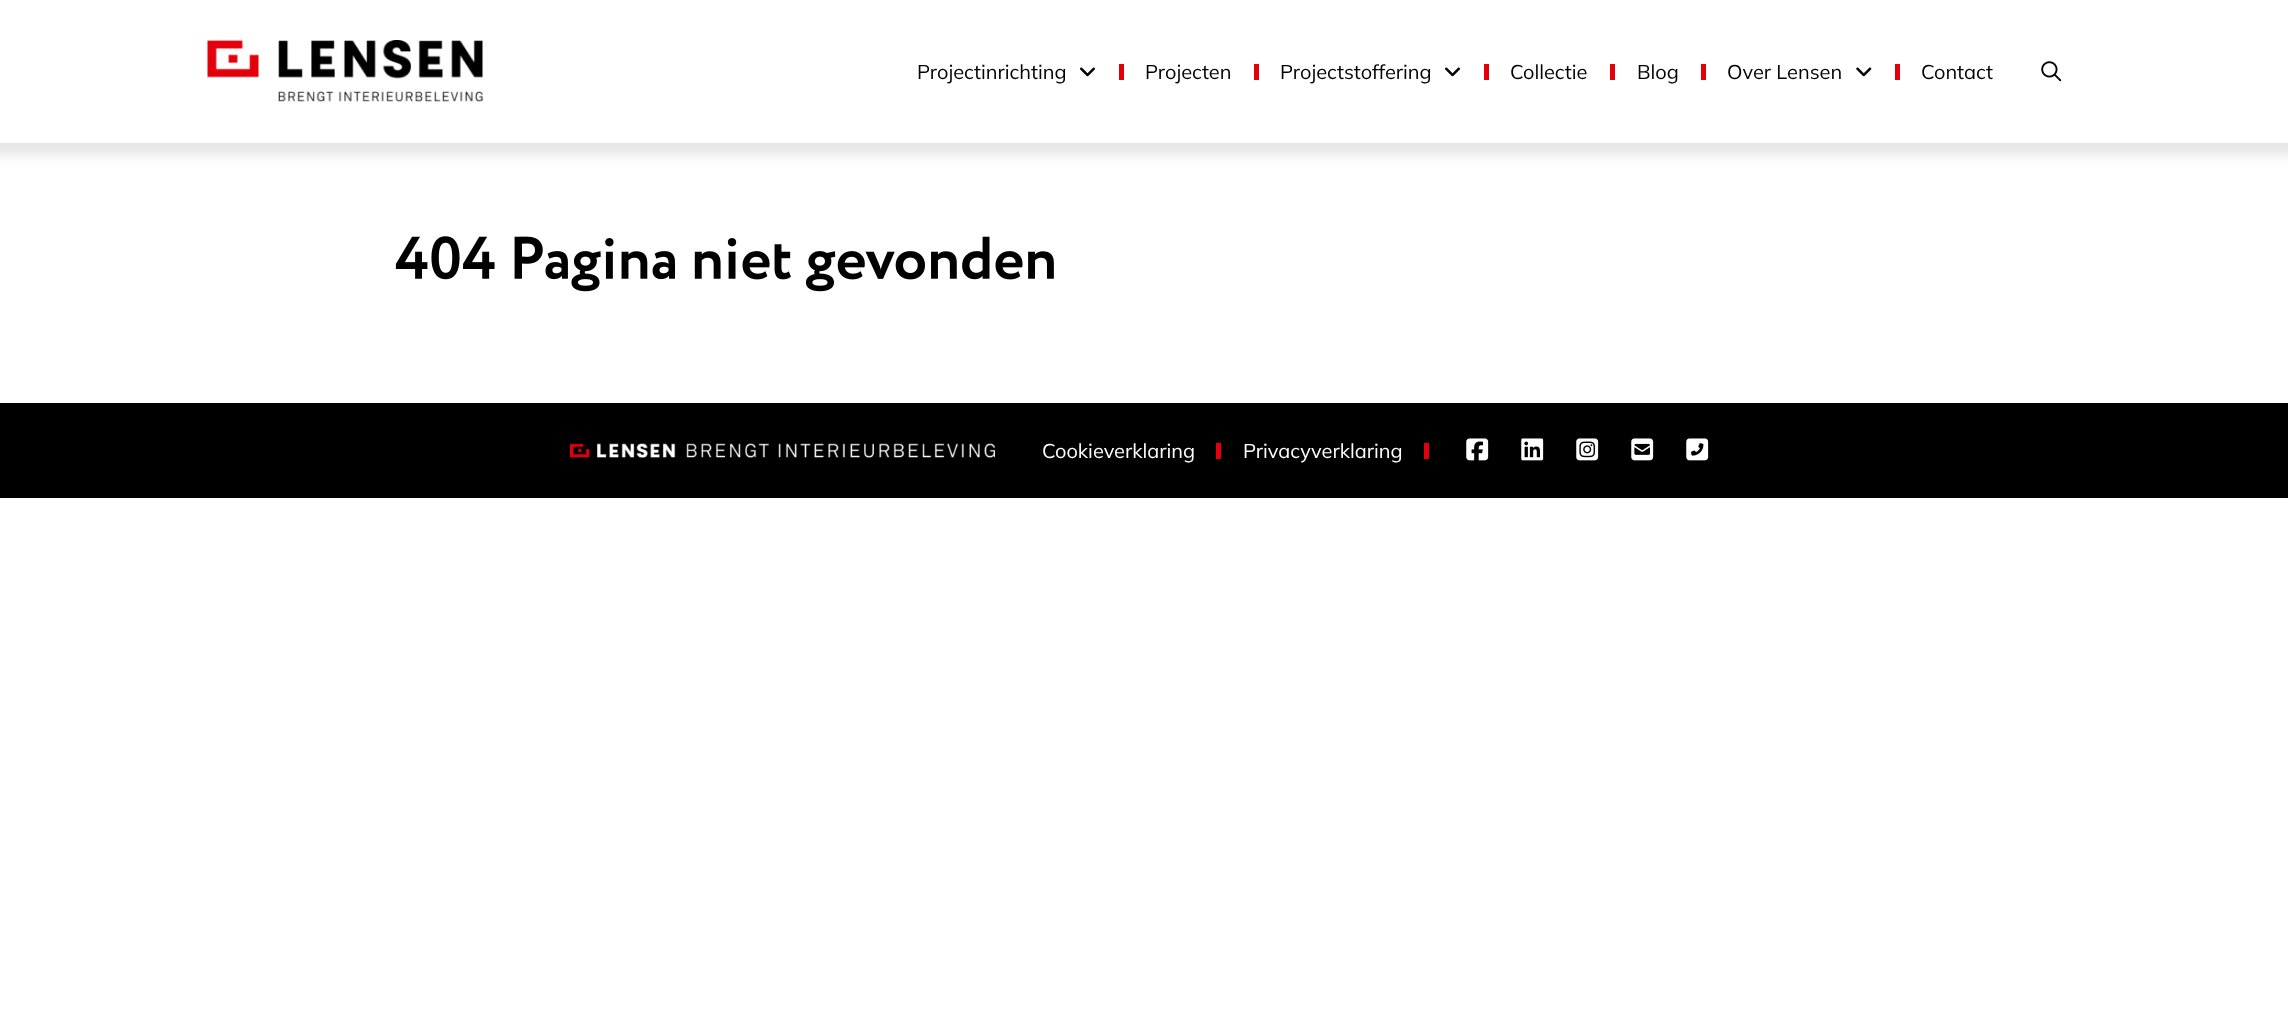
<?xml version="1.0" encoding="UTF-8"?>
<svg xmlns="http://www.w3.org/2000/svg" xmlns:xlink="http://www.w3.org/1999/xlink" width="2288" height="1020">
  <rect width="100%" height="100%" fill="#ffffff" />
  <rect x="-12" y="-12" width="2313" height="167" fill="#000000" fill-opacity="0.1" filter="blur(6px)" />
  <rect width="2288" height="143" fill="#ffffff" />
  <image x="207" y="40" width="276" height="62" xlink:href="image1.png" />
  <image x="1080" y="67" width="15" height="10" xlink:href="image2.png" />
  <rect x="1119" y="64" width="5" height="16" fill="#e3000a" />
  <rect x="1254" y="64" width="5" height="16" fill="#e3000a" />
  <image x="1445" y="67" width="15" height="10" xlink:href="image2.png" />
  <rect x="1484" y="64" width="5" height="16" fill="#e3000a" />
  <rect x="1610" y="64" width="5" height="16" fill="#e3000a" />
  <rect x="1701" y="64" width="5" height="16" fill="#e3000a" />
  <image x="1856" y="67" width="16" height="10" xlink:href="image3.png" />
  <rect x="1895" y="64" width="5" height="16" fill="#e3000a" />
  <image x="2041" y="61" width="21" height="21" xlink:href="image4.png" />
  <image x="395" y="236" width="659" height="56" xlink:href="image5.png" />
  <rect y="403" width="2288" height="95" fill="#000000" />
  <image x="570" y="443" width="425" height="15" xlink:href="image6.png" />
  <rect x="1216" y="443" width="5" height="16" fill="#e3000a" />
  <rect x="1424" y="443" width="5" height="16" fill="#e3000a" />
  <image x="1466" y="438" width="23" height="23" xlink:href="image7.png" />
  <image x="1521" y="438" width="23" height="23" xlink:href="image8.png" />
  <image x="1576" y="438" width="23" height="23" xlink:href="image9.png" />
  <image x="1631" y="438" width="23" height="23" xlink:href="image10.png" />
  <image x="1686" y="438" width="23" height="23" xlink:href="image11.png" />
  <text x="917" y="79" style="font-family: Mulish; font-size: 20px; fill: #000000">Projectinrichting</text>
  <text x="1145" y="79" style="font-family: Mulish; font-size: 20px; fill: #000000">Projecten</text>
  <text x="1280" y="79" style="font-family: Mulish; font-size: 20px; fill: #000000">Projectstoffering</text>
  <text x="1510" y="79" style="font-family: Mulish; font-size: 20px; fill: #000000">Collectie</text>
  <text x="1637" y="79" style="font-family: Mulish; font-size: 20px; fill: #000000">Blog</text>
  <text x="1727" y="79" style="font-family: Mulish; font-size: 20px; fill: #000000">Over Lensen</text>
  <text x="1921" y="79" style="font-family: Mulish; font-size: 20px; fill: #000000">Contact</text>
  <text x="1042" y="458" style="font-family: Mulish; font-size: 20px; fill: #ffffff">Cookieverklaring</text>
  <text x="1243" y="458" style="font-family: Mulish; font-size: 20px; fill: #ffffff">Privacyverklaring</text>
</svg>
